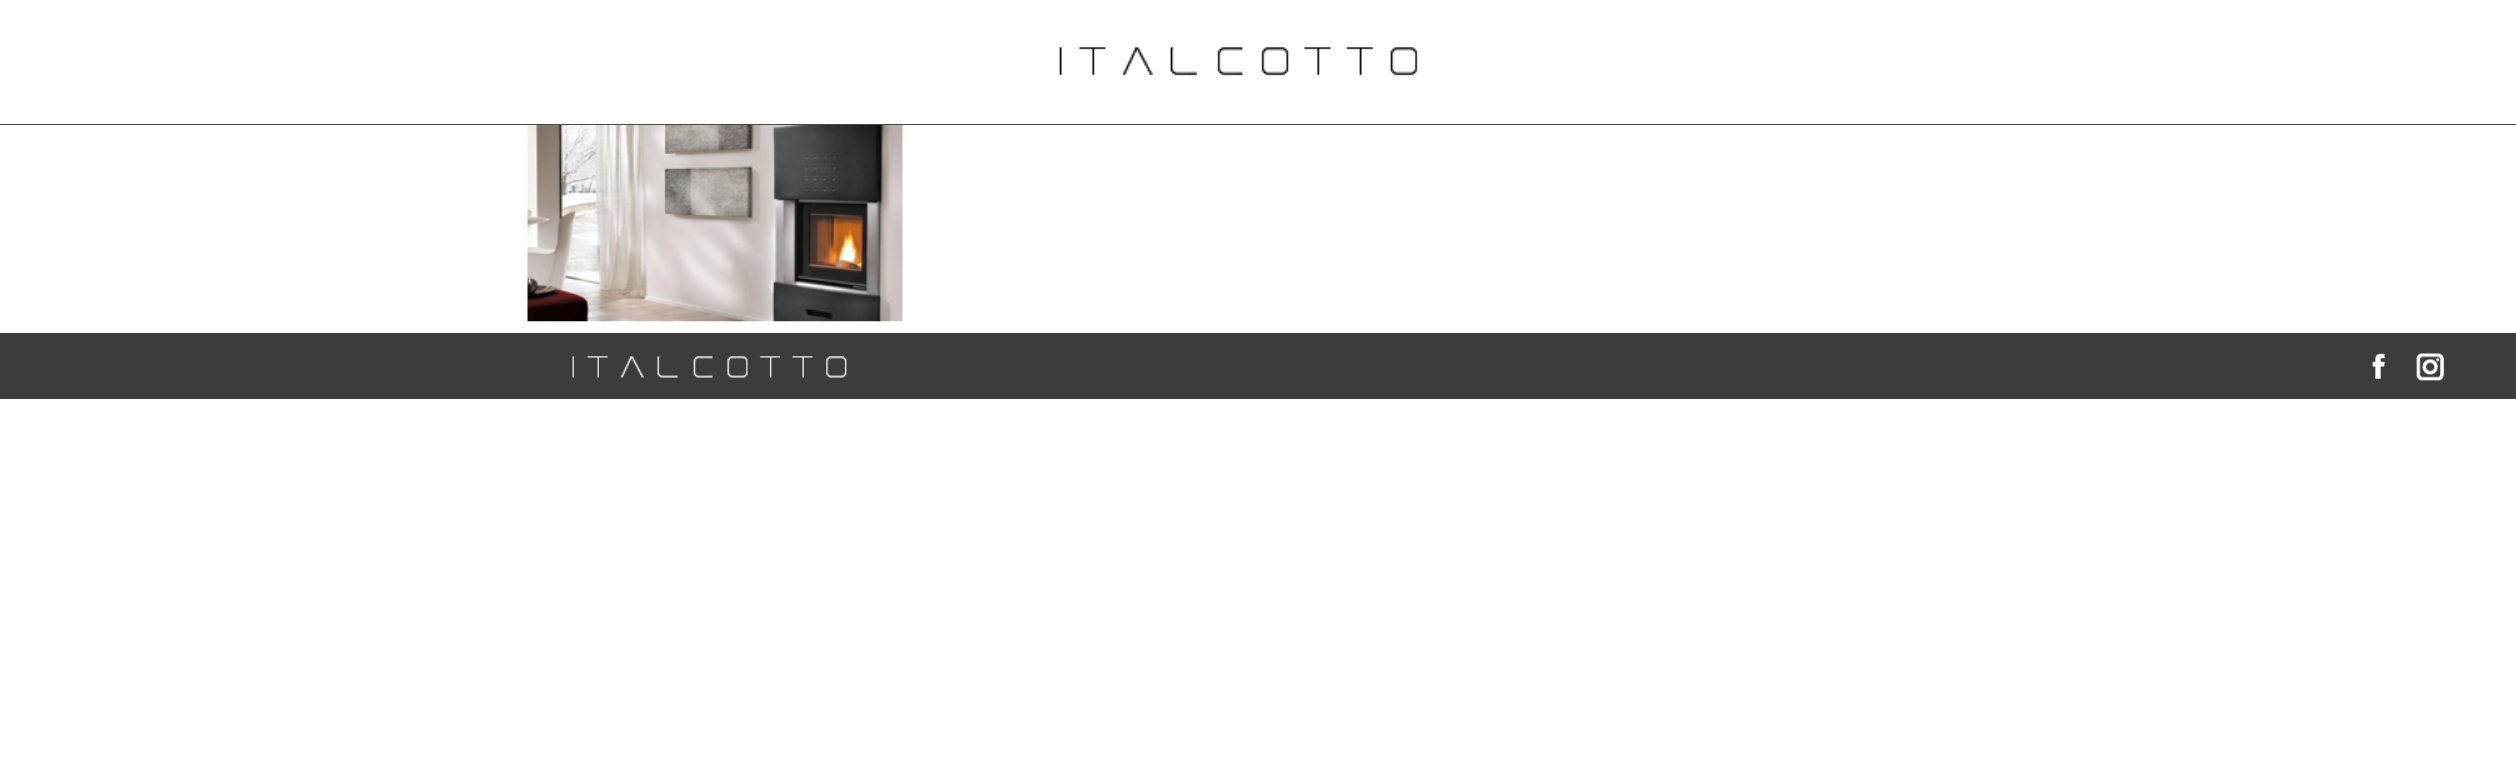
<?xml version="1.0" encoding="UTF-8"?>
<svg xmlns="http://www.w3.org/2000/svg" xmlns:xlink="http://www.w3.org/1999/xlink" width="2516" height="759">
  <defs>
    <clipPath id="clip1"><rect y="124" width="2516" height="1" /></clipPath>
  </defs>
  <rect width="100%" height="100%" fill="#ffffff" />
  <image x="1059" y="47" width="359" height="29" xlink:href="image1.png" />
  <g clip-path="url(#clip1)">
    <path d="M -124 0 h 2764 v 249 h -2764 z m 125 125 h 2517 v 1 h -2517 z" fill="#474747" fill-rule="evenodd" />
  </g>
  <image x="527" y="125" width="376" height="197" xlink:href="image2.png" />
  <rect y="333" width="2516" height="66" fill="#3c3c3c" />
  <image x="572" y="356" width="275" height="22" xlink:href="image3.png" />
  <image x="2372" y="353" width="13" height="26" xlink:href="image4.png" />
  <image x="2416" y="353" width="29" height="28" xlink:href="image5.png" />
</svg>
